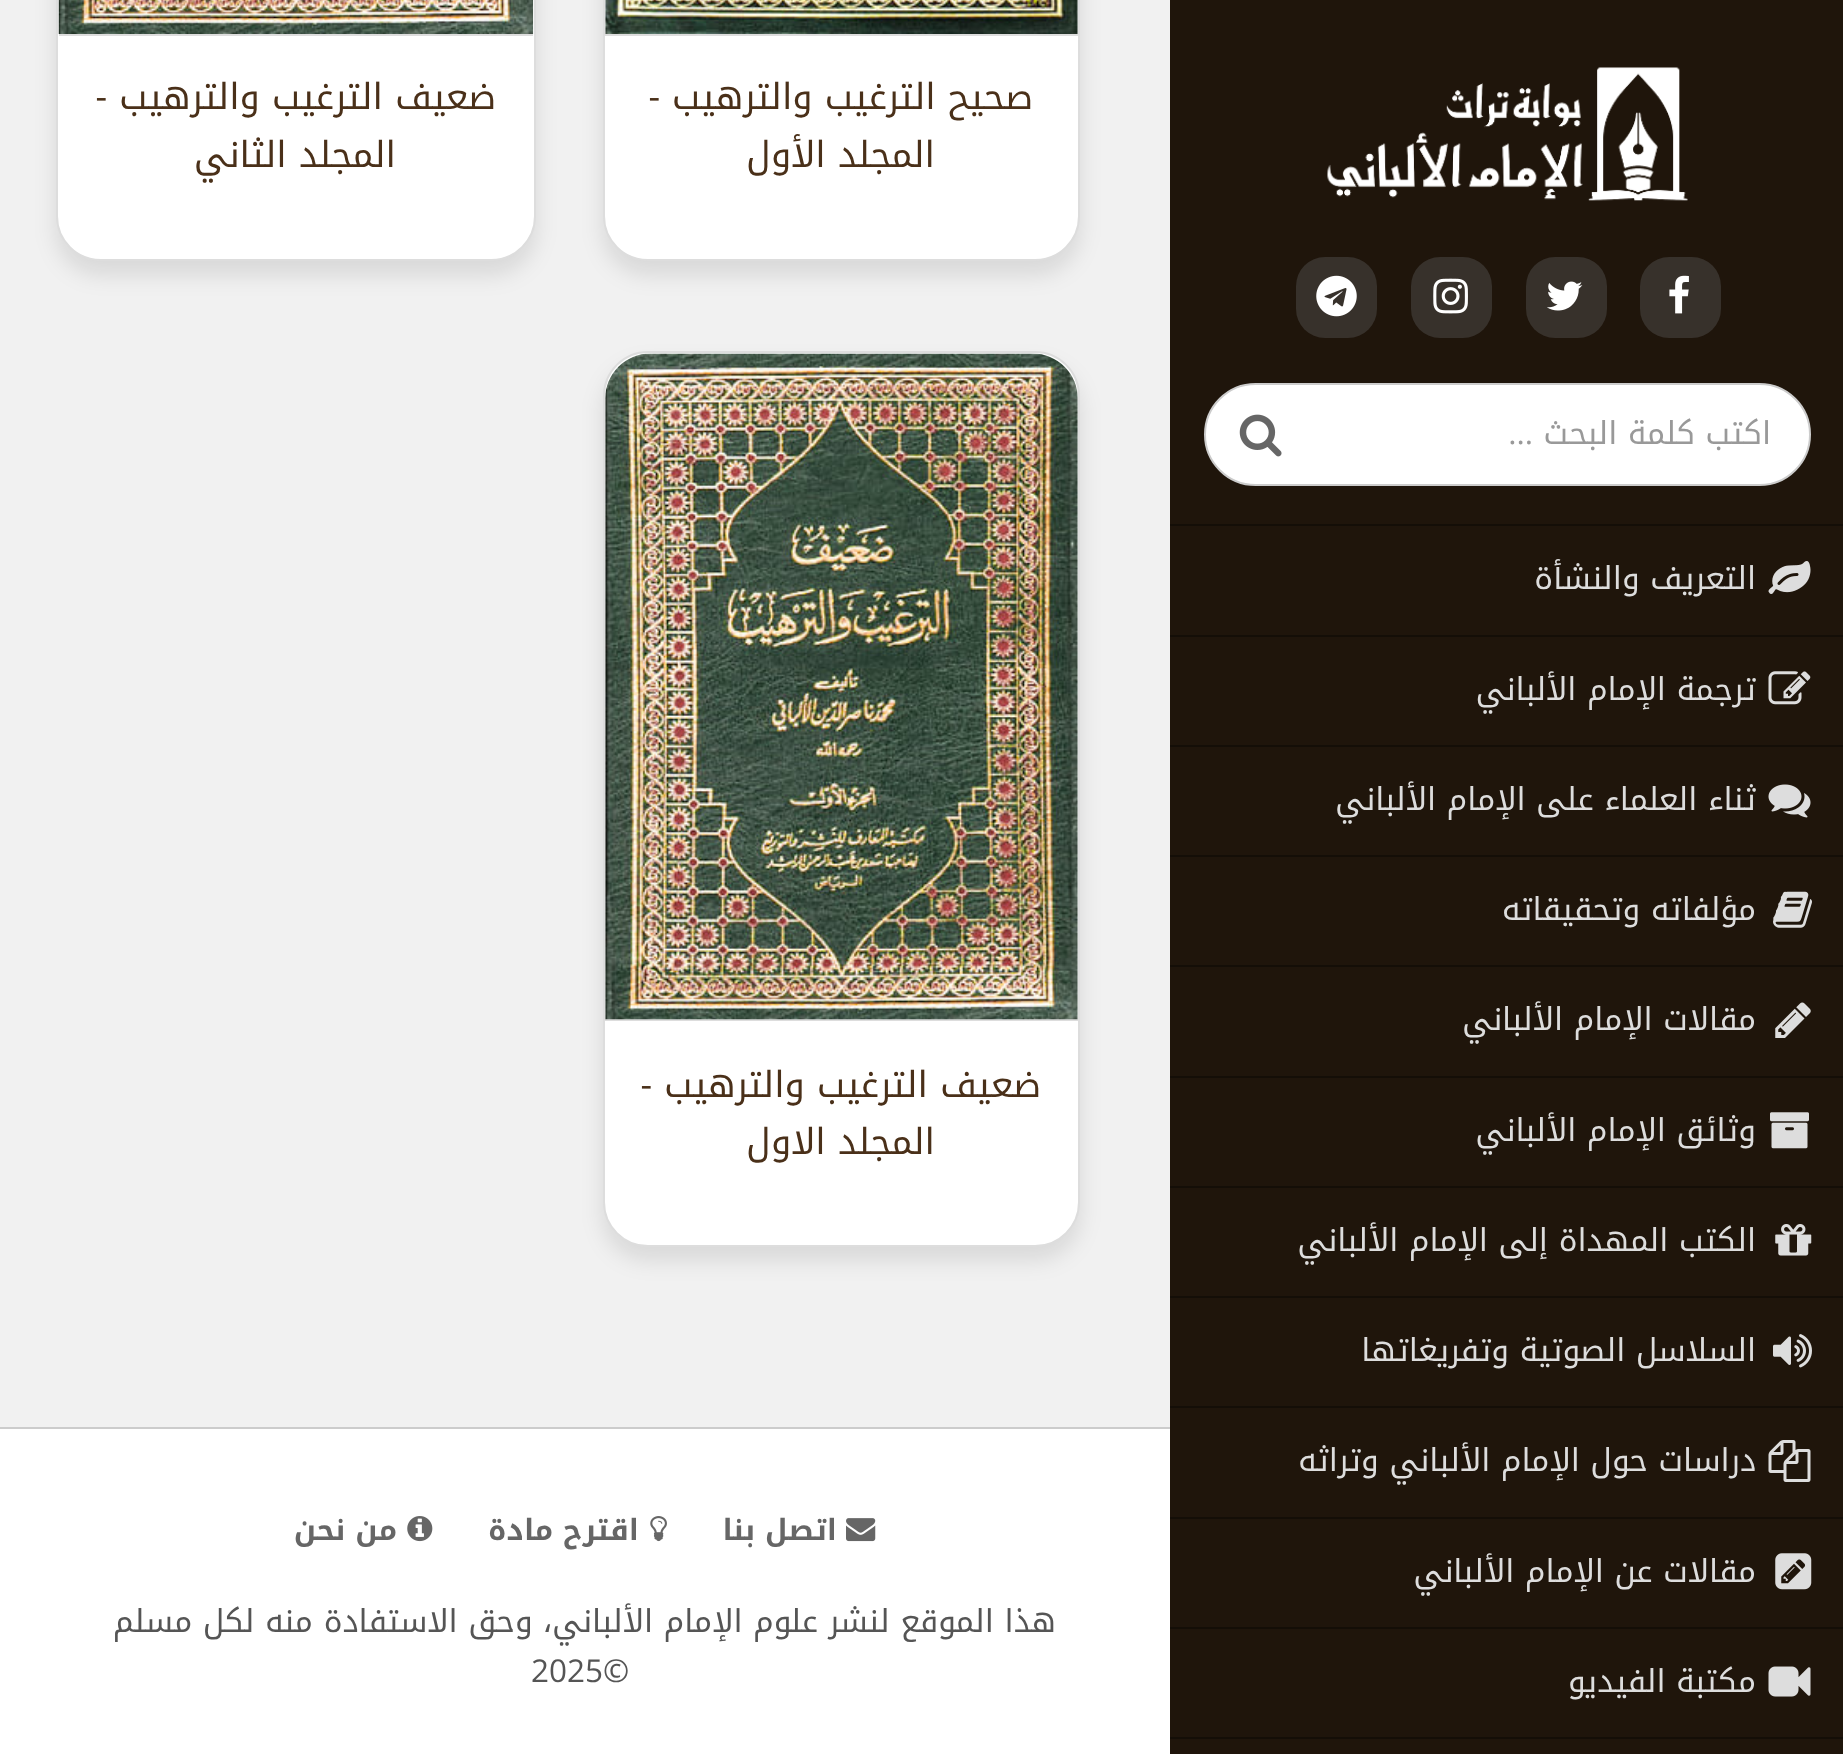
<?xml version="1.0" encoding="UTF-8"?>
<svg xmlns="http://www.w3.org/2000/svg" xmlns:xlink="http://www.w3.org/1999/xlink" width="1843" height="1754">
  <rect width="100%" height="100%" fill="#f1f1f1" />
  <rect x="1170" width="673" height="1754" fill="#1f150b" />
  <rect x="1170" y="524" width="673" height="2" fill="#140e07" />
  <image x="1327" y="67" width="361" height="134" xlink:href="image1.png" />
  <rect x="1640" y="257" width="81" height="81" rx="29" fill="#37312b" />
  <image x="1669" y="275" width="20" height="39" xlink:href="image2.png" />
  <rect x="1526" y="257" width="81" height="81" rx="29" fill="#37312b" />
  <image x="1547" y="281" width="36" height="30" xlink:href="image3.png" />
  <rect x="1411" y="257" width="81" height="81" rx="29" fill="#37312b" />
  <image x="1433" y="278" width="35" height="36" xlink:href="image4.png" />
  <rect x="1296" y="257" width="81" height="81" rx="29" fill="#37312b" />
  <image x="1316" y="275" width="41" height="42" xlink:href="image5.png" />
  <rect x="1205" y="384" width="605" height="101" rx="50.5" fill="#ffffff" stroke="#cccccc" stroke-width="2" />
  <image x="1239" y="414" width="43" height="43" xlink:href="image6.png" />
  <rect x="1170" y="635" width="673" height="2" fill="#140e07" />
  <image x="1768" y="561" width="43" height="33" xlink:href="image7.png" />
  <rect x="1170" y="745" width="673" height="2" fill="#140e07" />
  <image x="1768" y="671" width="43" height="34" xlink:href="image8.png" />
  <rect x="1170" y="855" width="673" height="2" fill="#140e07" />
  <image x="1768" y="784" width="43" height="34" xlink:href="image9.png" />
  <rect x="1170" y="965" width="673" height="2" fill="#140e07" />
  <image x="1773" y="891" width="39" height="37" xlink:href="image10.png" />
  <rect x="1170" y="1076" width="673" height="2" fill="#140e07" />
  <image x="1775" y="1002" width="36" height="36" xlink:href="image11.png" />
  <rect x="1170" y="1186" width="673" height="2" fill="#140e07" />
  <image x="1770" y="1112" width="39" height="37" xlink:href="image12.png" />
  <rect x="1170" y="1296" width="673" height="2" fill="#140e07" />
  <image x="1775" y="1224" width="37" height="32" xlink:href="image13.png" />
  <rect x="1170" y="1406" width="673" height="2" fill="#140e07" />
  <image x="1773" y="1334" width="39" height="34" xlink:href="image14.png" />
  <rect x="1170" y="1517" width="673" height="2" fill="#140e07" />
  <image x="1768" y="1440" width="43" height="42" xlink:href="image15.png" />
  <rect x="1170" y="1627" width="673" height="2" fill="#140e07" />
  <image x="1775" y="1553" width="37" height="37" xlink:href="image16.png" />
  <rect x="1170" y="1737" width="673" height="2" fill="#140e07" />
  <image x="1768" y="1666" width="43" height="31" xlink:href="image17.png" />
  <rect x="603" y="-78" width="477" height="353" rx="45" fill="#000000" fill-opacity="0.1" filter="blur(11px)" />
  <rect x="604" y="-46" width="475" height="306" rx="44" fill="#ffffff" stroke="#dddddd" stroke-width="2" />
  <image x="605" y="0" width="473" height="34" xlink:href="image18.png" />
  <rect x="605" y="34" width="473" height="2" fill="#dddddd" />
  <rect x="56" y="-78" width="480" height="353" rx="45" fill="#000000" fill-opacity="0.1" filter="blur(11px)" />
  <rect x="57" y="-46" width="478" height="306" rx="44" fill="#ffffff" stroke="#dddddd" stroke-width="2" />
  <image x="58" y="0" width="476" height="34" xlink:href="image19.png" />
  <rect x="59" y="34" width="474" height="2" fill="#dddddd" />
  <rect x="603" y="365" width="477" height="895" rx="45" fill="#000000" fill-opacity="0.1" filter="blur(11px)" />
  <rect x="604" y="352" width="475" height="894" rx="44" fill="#ffffff" stroke="#dddddd" stroke-width="2" />
  <rect x="605" y="1019" width="473" height="2" fill="#dddddd" />
  <image x="605" y="353" width="473" height="667" xlink:href="image20.png" />
  <rect y="1429" width="1170" height="325" fill="#ffffff" />
  <rect y="1427" width="1170" height="2" fill="#cccccc" />
  <image x="846" y="1518" width="30" height="24" xlink:href="image21.png" />
  <image x="650" y="1516" width="17" height="26" xlink:href="image22.png" />
  <image x="407" y="1516" width="26" height="26" xlink:href="image23.png" />
  <text x="1771" y="444" style="font-family: Noto Kufi Arabic; font-size: 31.5px; direction: rtl; fill: #999999">اكتب كلمة البحث</text>
  <text x="1533" y="444" style="font-family: Open Sans; font-size: 31.5px; direction: rtl; fill: #999999">...</text>
  <text x="1756" y="589" style="font-family: Noto Kufi Arabic; font-size: 31.5px; direction: rtl; fill: #dddddd">التعريف والنشأة</text>
  <text x="1756" y="700" style="font-family: Noto Kufi Arabic; font-size: 31.5px; direction: rtl; fill: #dddddd">ترجمة الإمام الألباني</text>
  <text x="1756" y="810" style="font-family: Noto Kufi Arabic; font-size: 31.5px; direction: rtl; fill: #dddddd">ثناء العلماء على الإمام الألباني</text>
  <text x="1756" y="920" style="font-family: Noto Kufi Arabic; font-size: 31.5px; direction: rtl; fill: #dddddd">مؤلفاته وتحقيقاته</text>
  <text x="1756" y="1030" style="font-family: Noto Kufi Arabic; font-size: 31.5px; direction: rtl; fill: #dddddd">مقالات الإمام الألباني</text>
  <text x="1756" y="1141" style="font-family: Noto Kufi Arabic; font-size: 31.5px; direction: rtl; fill: #dddddd">وثائق الإمام الألباني</text>
  <text x="1756" y="1251" style="font-family: Noto Kufi Arabic; font-size: 31.5px; direction: rtl; fill: #dddddd">الكتب المهداة إلى الإمام الألباني</text>
  <text x="1756" y="1361" style="font-family: Noto Kufi Arabic; font-size: 31.5px; direction: rtl; fill: #dddddd">السلاسل الصوتية وتفريغاتها</text>
  <text x="1756" y="1471" style="font-family: Noto Kufi Arabic; font-size: 31.5px; direction: rtl; fill: #dddddd">دراسات حول الإمام الألباني وتراثه</text>
  <text x="1756" y="1582" style="font-family: Noto Kufi Arabic; font-size: 31.5px; direction: rtl; fill: #dddddd">مقالات عن الإمام الألباني</text>
  <text x="1756" y="1692" style="font-family: Noto Kufi Arabic; font-size: 31.5px; direction: rtl; fill: #dddddd">مكتبة الفيديو</text>
  <text x="1033" y="109" style="font-family: Noto Kufi Arabic; font-size: 36px; direction: rtl; fill: #4a3019">صحيح الترغيب والترهيب</text>
  <text x="660" y="109" style="font-family: Open Sans; font-size: 36px; direction: rtl; fill: #4a3019">-</text>
  <text x="935" y="167" style="font-family: Noto Kufi Arabic; font-size: 36px; direction: rtl; fill: #4a3019">المجلد الأول</text>
  <text x="496" y="109" style="font-family: Noto Kufi Arabic; font-size: 36px; direction: rtl; fill: #4a3019">ضعيف الترغيب والترهيب</text>
  <text x="107" y="109" style="font-family: Open Sans; font-size: 36px; direction: rtl; fill: #4a3019">-</text>
  <text x="396" y="167" style="font-family: Noto Kufi Arabic; font-size: 36px; direction: rtl; fill: #4a3019">المجلد الثاني</text>
  <text x="1041" y="1097" style="font-family: Noto Kufi Arabic; font-size: 36px; direction: rtl; fill: #4a3019">ضعيف الترغيب والترهيب</text>
  <text x="652" y="1097" style="font-family: Open Sans; font-size: 36px; direction: rtl; fill: #4a3019">-</text>
  <text x="935" y="1154" style="font-family: Noto Kufi Arabic; font-size: 36px; direction: rtl; fill: #4a3019">المجلد الاول</text>
  <text x="837" y="1540" style="font-family: Noto Kufi Arabic; font-size: 29.25px; font-weight: bold; direction: rtl; fill: #666666">اتصل بنا</text>
  <text x="639" y="1540" style="font-family: Noto Kufi Arabic; font-size: 29.25px; font-weight: bold; direction: rtl; fill: #666666">اقترح مادة</text>
  <text x="397" y="1540" style="font-family: Noto Kufi Arabic; font-size: 29.25px; font-weight: bold; direction: rtl; fill: #666666">من نحن</text>
  <text x="1056" y="1632" style="font-family: Noto Kufi Arabic; font-size: 31.5px; direction: rtl; fill: #555555">هذا الموقع لنشر علوم الإمام الألباني، وحق الاستفادة منه لكل مسلم</text>
  <text x="531" y="1682" style="font-family: Open Sans; font-size: 31.5px; fill: #555555">2025©</text>
</svg>
